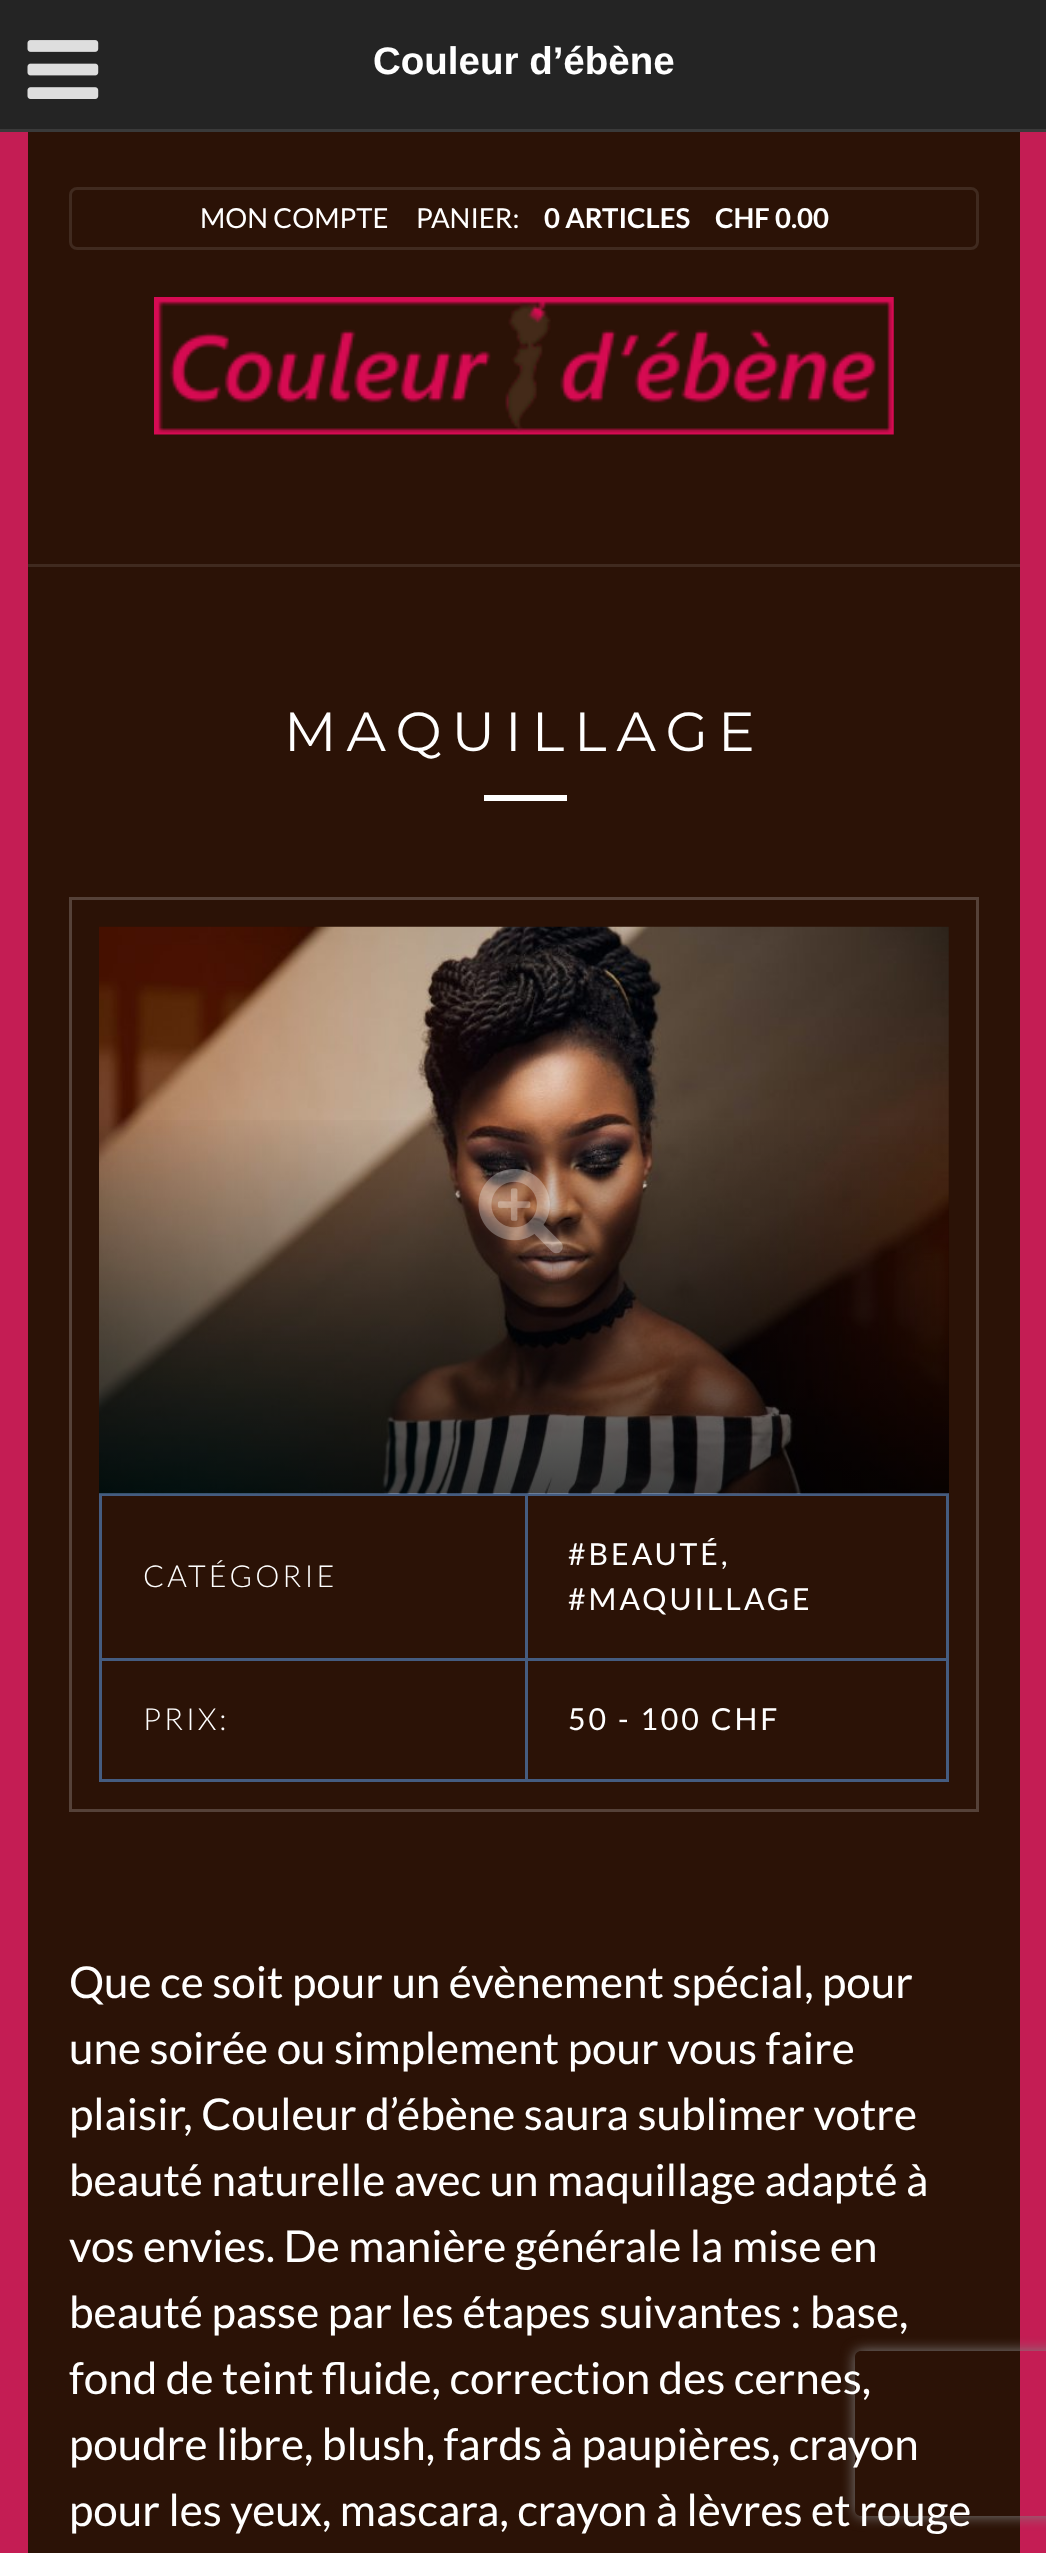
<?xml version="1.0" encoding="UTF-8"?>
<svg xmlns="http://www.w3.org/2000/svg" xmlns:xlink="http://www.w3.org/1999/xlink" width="1046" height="2553">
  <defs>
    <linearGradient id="g1" gradientUnits="userSpaceOnUse" x1="524" y1="1493" x2="524" y2="1108"><stop offset="0" stop-color="#000000" stop-opacity="0.7" /><stop offset="1" stop-color="#000000" stop-opacity="0" /></linearGradient>
    <clipPath id="clip1"><path d="M 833 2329 h 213 v 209 h -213 z m 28 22 h 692 c 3.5 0 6 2.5 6 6 v 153 c 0 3.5 -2.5 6 -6 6 h -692 c -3.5 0 -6 -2.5 -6 -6 v -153 c 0 -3.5 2.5 -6 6 -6 z" clip-rule="evenodd" /></clipPath>
  </defs>
  <rect width="100%" height="100%" fill="#2b1206" />
  <rect x="14" y="14" width="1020" height="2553" fill="none" stroke="#c41d54" stroke-width="28" />
  <rect width="1046" height="129" fill="#242424" />
  <rect y="129" width="1046" height="3" fill="#3a3a3a" />
  <image x="27" y="40" width="72" height="59" xlink:href="image1.png" />
  <rect x="28" y="564" width="992" height="3" fill="#402a1f" />
  <rect x="70.5" y="188.5" width="907" height="60" rx="6.5" fill="none" stroke="#402a1f" stroke-width="3" />
  <image x="154" y="297" width="740" height="138" xlink:href="image2.png" />
  <rect x="484" y="795" width="83" height="6" fill="#ffffff" />
  <rect x="70.5" y="898.5" width="907" height="912" fill="none" stroke="#554138" stroke-width="3" />
  <rect x="99" y="1493" width="850" height="3" fill="#455c80" />
  <image x="99" y="926" width="850" height="568" xlink:href="image3.png" />
  <rect x="99" y="1120" width="850" height="373" fill="url(#g1)" />
  <image x="478" y="1169" width="85" height="85" xlink:href="image4.png" />
  <rect x="99" y="1658" width="426" height="3" fill="#455c80" />
  <rect x="99" y="1496" width="3" height="165" fill="#455c80" />
  <rect x="946" y="1496" width="3" height="286" fill="#455c80" />
  <rect x="525" y="1658" width="424" height="3" fill="#455c80" />
  <rect x="525" y="1496" width="3" height="165" fill="#455c80" />
  <rect x="99" y="1779" width="850" height="3" fill="#455c80" />
  <rect x="99" y="1661" width="3" height="121" fill="#455c80" />
  <rect x="525" y="1661" width="3" height="121" fill="#455c80" />
  <g clip-path="url(#clip1)">
    <rect x="855" y="2351" width="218" height="165" rx="6" fill="#808080" filter="blur(7px)" />
  </g>
  <text x="373" y="74" style="font-family: Liberation Sans; font-size: 38.5px; font-weight: bold; fill: #ffffff">Couleur d’ébène</text>
  <text x="200" y="228" style="font-family: Lato; font-size: 27.5px; fill: #ffffff">MON COMPTE</text>
  <text x="416" y="228" style="font-family: Lato; font-size: 27.5px; fill: #ffffff">PANIER:</text>
  <text x="544" y="228" style="font-family: Lato; font-size: 27.5px; font-weight: bold; fill: #ffffff">0 ARTICLES</text>
  <text x="715" y="228" style="font-family: Lato; font-size: 27.5px; font-weight: bold; fill: #ffffff">CHF 0.00</text>
  <text x="284" y="751" style="font-family: Montserrat; font-size: 55px; letter-spacing: 10px; fill: #ffffff">MAQUILLAGE</text>
  <text x="143" y="1587" style="font-family: Lato; font-size: 30.25px; font-weight: 300; letter-spacing: 3px; fill: #ffffff">CATÉGORIE</text>
  <text x="568" y="1565" style="font-family: Lato; font-size: 30.25px; letter-spacing: 3px; fill: #ffffff">#BEAUTÉ,</text>
  <text x="568" y="1610" style="font-family: Lato; font-size: 30.25px; letter-spacing: 3px; fill: #ffffff">#MAQUILLAGE</text>
  <text x="143" y="1730" style="font-family: Lato; font-size: 30.25px; font-weight: 300; letter-spacing: 3px; fill: #ffffff">PRIX:</text>
  <text x="568" y="1730" style="font-family: Lato; font-size: 30.25px; letter-spacing: 3px; fill: #ffffff">50 - 100 CHF</text>
  <text x="69" y="1998" style="font-family: Lato; font-size: 44px; fill: #ffffff">Que ce soit pour un évènement spécial, pour</text>
  <text x="69" y="2064" style="font-family: Lato; font-size: 44px; fill: #ffffff">une soirée ou simplement pour vous faire</text>
  <text x="69" y="2130" style="font-family: Lato; font-size: 44px; fill: #ffffff">plaisir, Couleur d’ébène saura sublimer votre</text>
  <text x="69" y="2196" style="font-family: Lato; font-size: 44px; fill: #ffffff">beauté naturelle avec un maquillage adapté à</text>
  <text x="69" y="2262" style="font-family: Lato; font-size: 44px; fill: #ffffff">vos envies. De manière générale la mise en</text>
  <text x="69" y="2328" style="font-family: Lato; font-size: 44px; fill: #ffffff">beauté passe par les étapes suivantes : base,</text>
  <text x="69" y="2394" style="font-family: Lato; font-size: 44px; fill: #ffffff">fond de teint fluide, correction des cernes,</text>
  <text x="69" y="2460" style="font-family: Lato; font-size: 44px; fill: #ffffff">poudre libre, blush, fards à paupières, crayon</text>
  <text x="69" y="2526" style="font-family: Lato; font-size: 44px; fill: #ffffff">pour les yeux, mascara, crayon à lèvres et rouge</text>
</svg>
